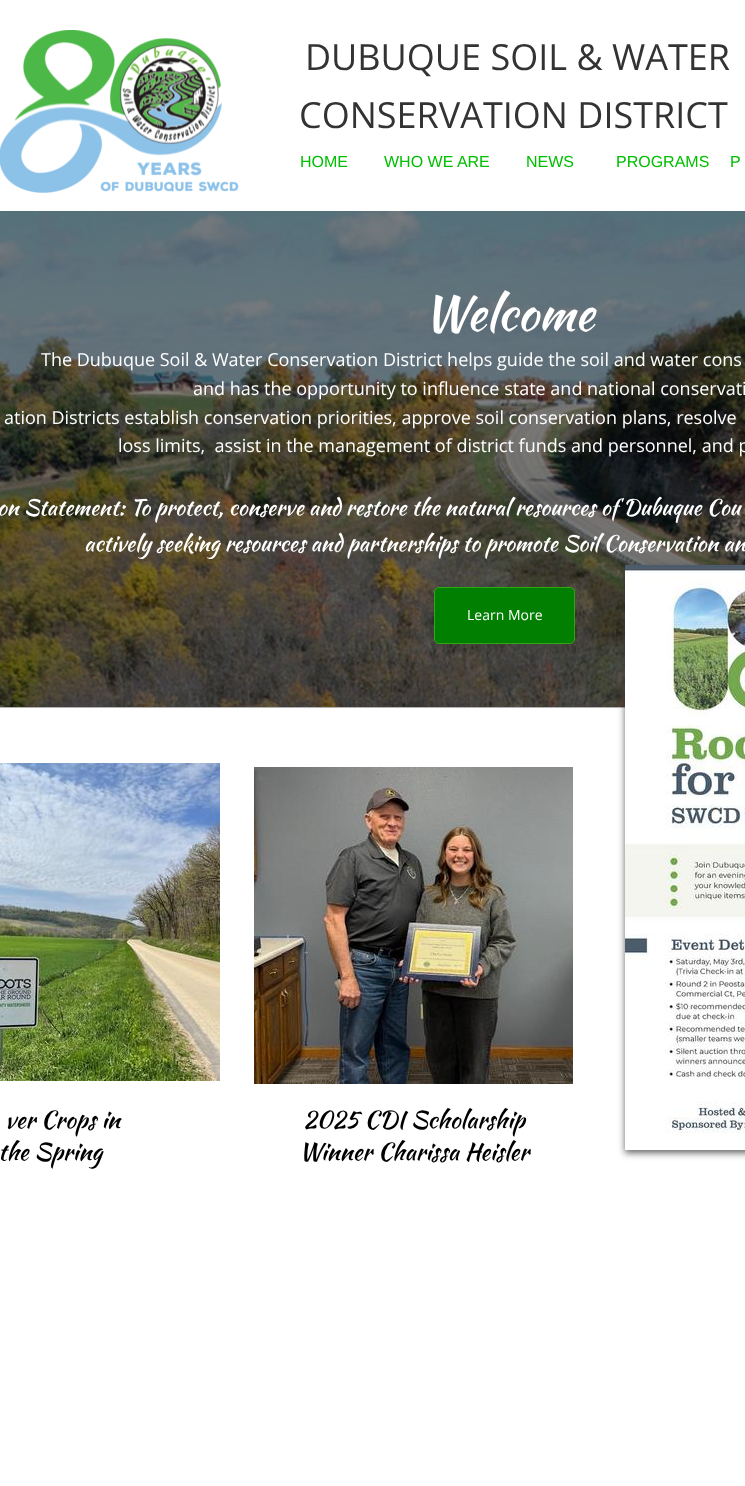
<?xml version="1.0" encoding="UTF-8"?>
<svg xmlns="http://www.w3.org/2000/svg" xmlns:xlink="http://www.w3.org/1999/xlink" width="745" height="1486">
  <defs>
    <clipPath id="clip1"><path d="M 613 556 h 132 v 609 h -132 z m 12 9 h 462 v 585 h -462 z" clip-rule="evenodd" /></clipPath>
  </defs>
  <rect width="100%" height="100%" fill="#ffffff" />
  <image x="0" y="30" width="239" height="163" xlink:href="image1.png" />
  <image x="0" y="211" width="745" height="496" xlink:href="image2.png" />
  <rect x="434.5" y="587.5" width="140" height="56" rx="4.5" fill="#007f00" stroke="#30a612" />
  <rect y="707" width="625" height="1" fill="#b2b2b2" />
  <g clip-path="url(#clip1)">
    <rect x="625" y="568" width="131" height="585" fill="#323232" fill-opacity="0.75" filter="blur(3.5px)" />
  </g>
  <image x="625" y="565" width="120" height="568" xlink:href="image3.png" />
  <image x="0" y="763" width="220" height="318" xlink:href="image4.png" />
  <image x="254" y="767" width="319" height="317" xlink:href="image5.png" />
  <text x="305" y="70" style="font-family: Open Sans; font-size: 36px; fill: #333333">DUBUQUE SOIL &amp; WATER</text>
  <text x="299" y="128" style="font-family: Open Sans; font-size: 36px; fill: #333333">CONSERVATION DISTRICT</text>
  <text x="300" y="167" style="font-family: Liberation Sans; font-size: 16px; fill: #00bf00">HOME</text>
  <text x="384" y="167" style="font-family: Liberation Sans; font-size: 16px; fill: #00bf00">WHO WE ARE</text>
  <text x="526" y="167" style="font-family: Liberation Sans; font-size: 16px; fill: #00bf00">NEWS</text>
  <text x="616" y="167" style="font-family: Liberation Sans; font-size: 16px; fill: #00bf00">PROGRAMS</text>
  <text x="730" y="167" style="font-family: Liberation Sans; font-size: 16px; fill: #00bf00">P</text>
  <text x="423" y="330" style="font-family: Kaushan Script; font-size: 48px; fill: #ffffff">Welcome</text>
  <text x="41" y="366" style="font-family: Open Sans; font-size: 18px; fill: #ffffff">The Dubuque Soil &amp; Water Conservation District helps guide the soil and water cons</text>
  <text x="193" y="395" style="font-family: Open Sans; font-size: 18px; fill: #ffffff">and has the opportunity to influence state and national conservati</text>
  <text x="4" y="424" style="font-family: Open Sans; font-size: 18px; fill: #ffffff">ation Districts establish conservation priorities, approve soil conservation plans, resolve</text>
  <text x="118" y="452" style="font-family: Open Sans; font-size: 18px; fill: #ffffff" xml:space="preserve">loss limits,  assist in the management of district funds and personnel, and p</text>
  <text x="-3" y="515" style="font-family: Kaushan Script; font-size: 22px; fill: #ffffff">on Statement: To protect, conserve and restore the natural resources of Dubuque Cou</text>
  <text x="84" y="551" style="font-family: Kaushan Script; font-size: 22px; fill: #ffffff">actively seeking resources and partnerships to promote Soil Conservation an</text>
  <text x="467" y="620" style="font-family: Open Sans; font-size: 14px; fill: #ffffff">Learn More</text>
  <text x="5" y="1128" style="font-family: Kaushan Script; font-size: 24px; fill: #000000">ver Crops in</text>
  <text x="-2" y="1160" style="font-family: Kaushan Script; font-size: 24px; fill: #000000">the Spring</text>
  <text x="303" y="1128" style="font-family: Kaushan Script; font-size: 24px; fill: #000000">2025 CDI Scholarship</text>
  <text x="299" y="1160" style="font-family: Kaushan Script; font-size: 24px; fill: #000000">Winner Charissa Heisler</text>
</svg>
